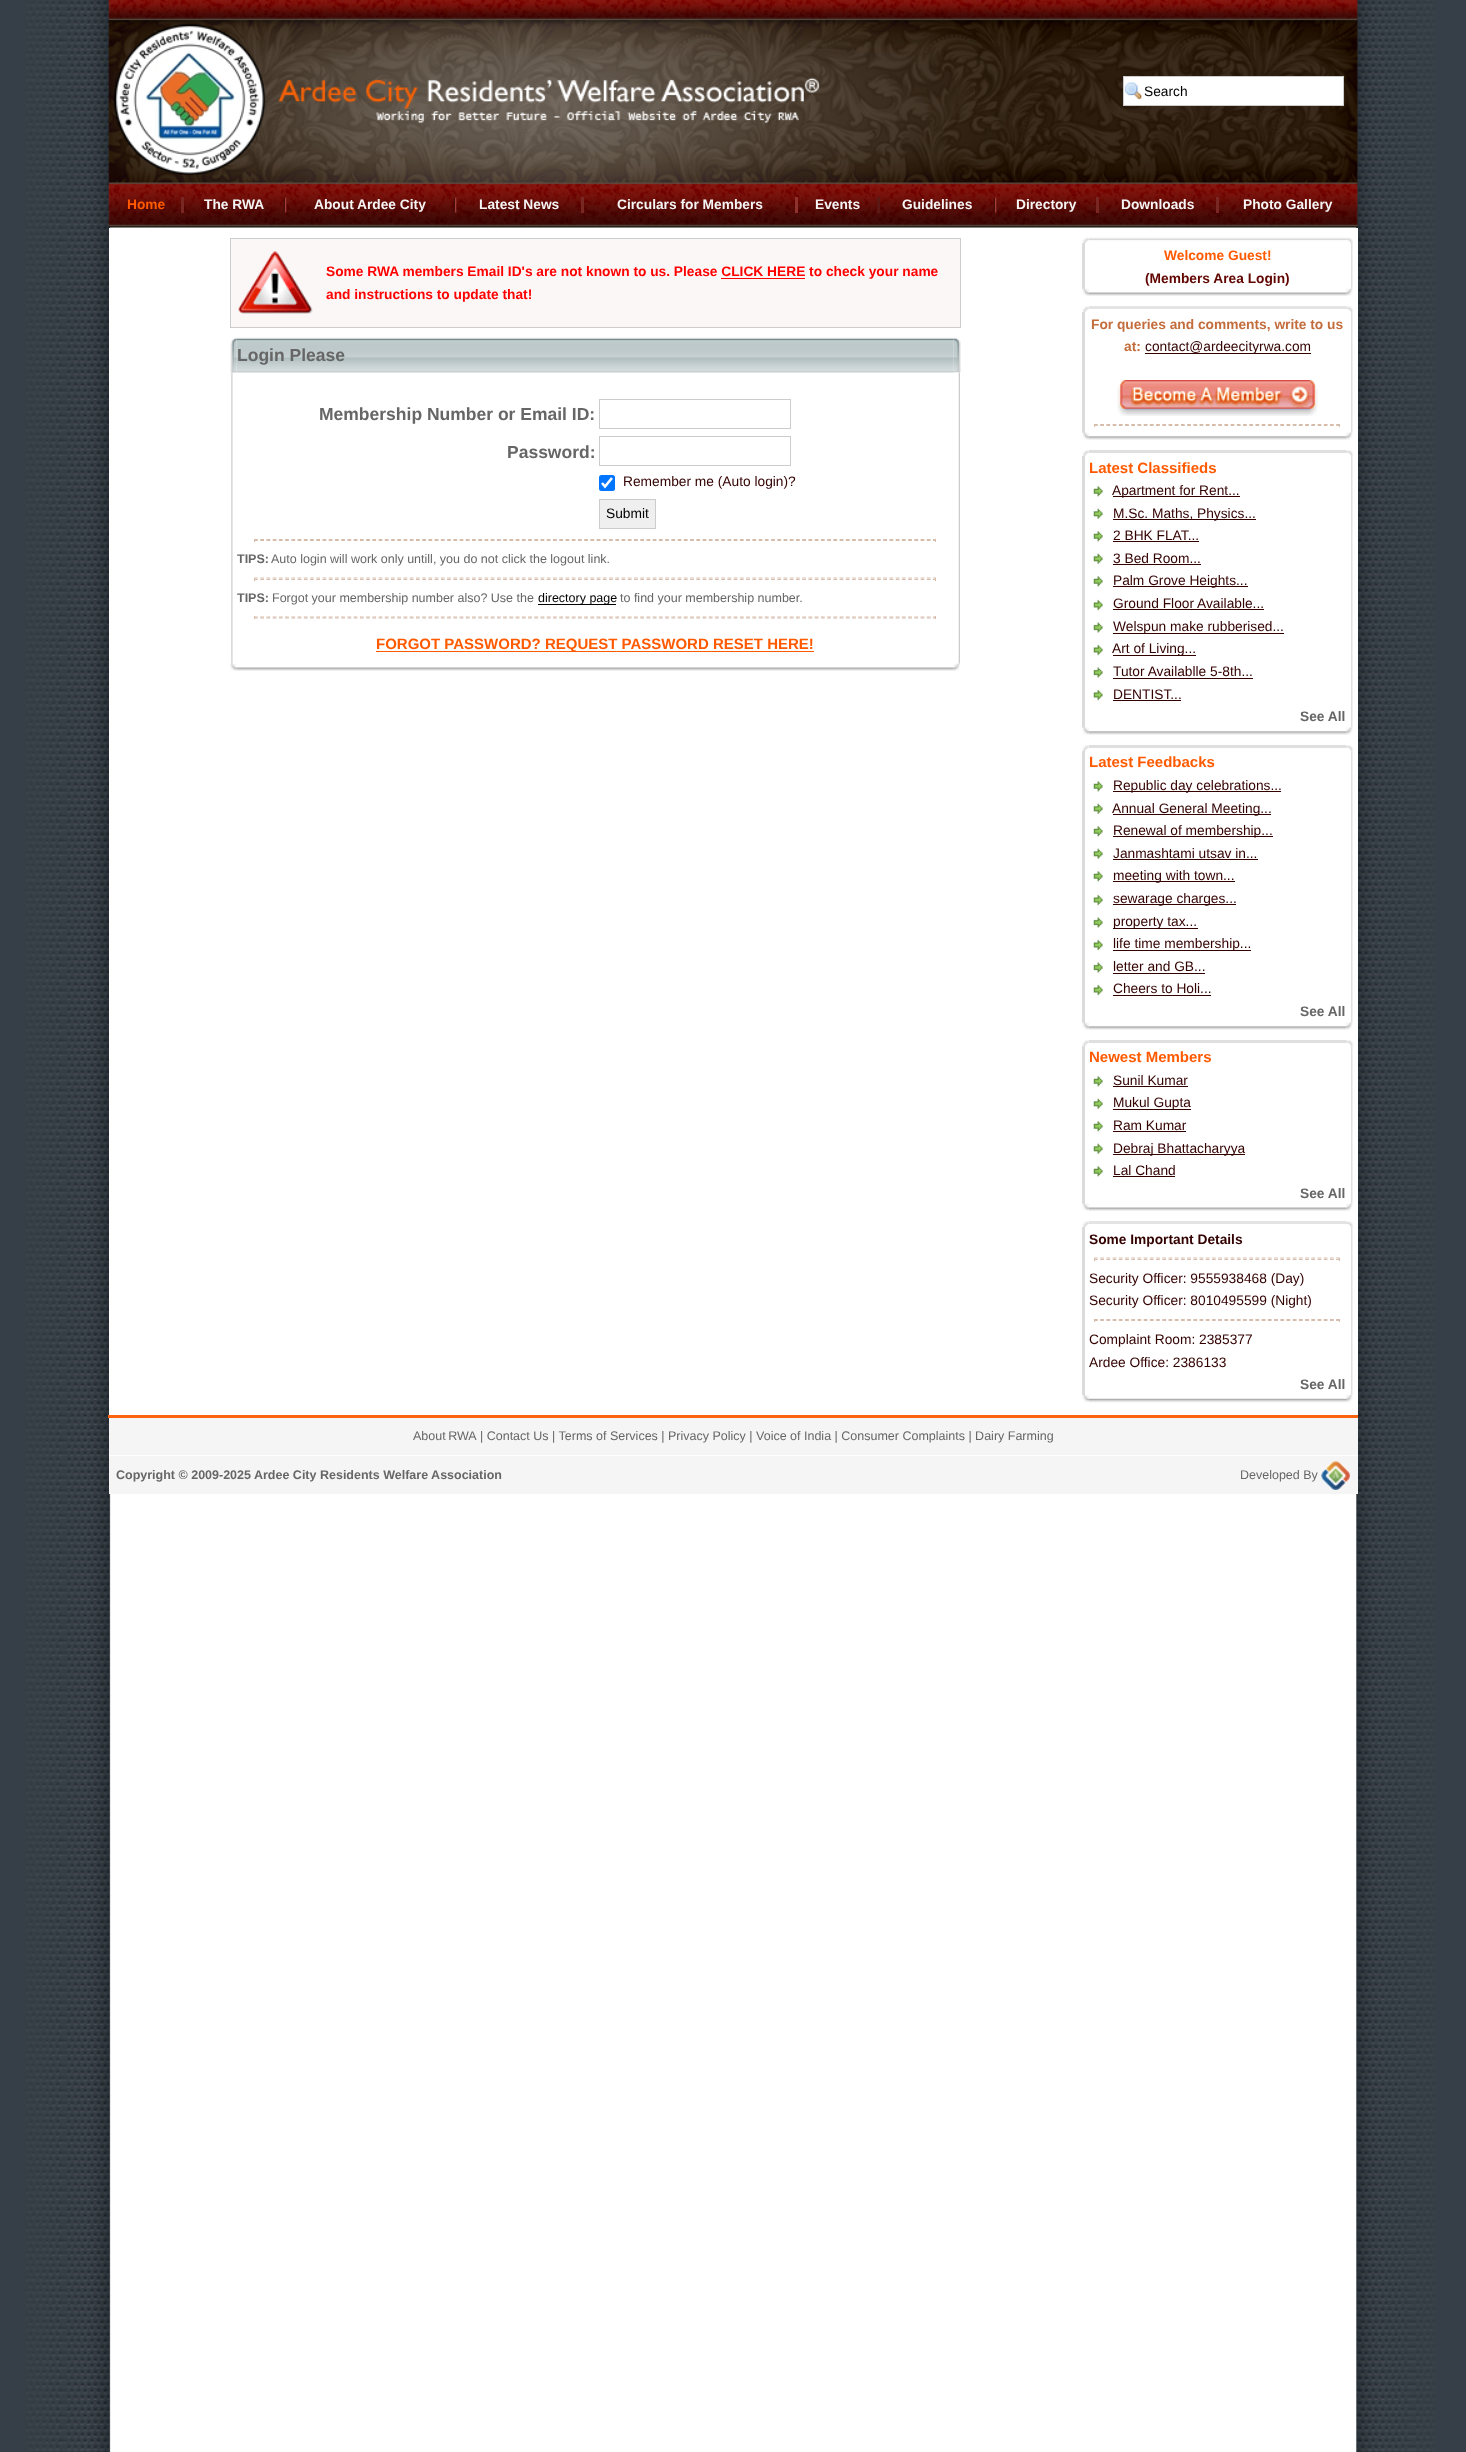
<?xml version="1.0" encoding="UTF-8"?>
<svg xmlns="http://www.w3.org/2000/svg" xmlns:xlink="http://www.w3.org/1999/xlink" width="1466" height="2452">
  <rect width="100%" height="100%" fill="#363f47" />
  <image x="26" y="0" width="1409" height="2452" xlink:href="image1.png" />
  <image x="108" y="0" width="1250" height="228" xlink:href="image2.png" />
  <image x="113" y="23" width="153" height="153" xlink:href="image3.png" />
  <image x="278" y="77" width="542" height="46" xlink:href="image4.png" />
  <rect x="1124" y="77" width="219" height="28" fill="#ffffff" />
  <image x="1124" y="82" width="18" height="18" xlink:href="image5.png" />
  <rect x="1123.5" y="76.5" width="220" height="29" fill="none" stroke="#cccccc" />
  <rect x="181" y="197" width="3" height="16" fill="#792723" />
  <image x="283" y="197" width="4" height="16" xlink:href="image6.png" />
  <image x="453" y="197" width="4" height="16" xlink:href="image7.png" />
  <rect x="581" y="197" width="3" height="16" fill="#792723" />
  <rect x="795" y="197" width="3" height="16" fill="#8f322d" />
  <rect x="877" y="197" width="3" height="16" fill="#5c1815" />
  <image x="993" y="197" width="4" height="16" xlink:href="image8.png" />
  <rect x="1096" y="197" width="3" height="16" fill="#792723" />
  <rect x="1216" y="197" width="3" height="16" fill="#792723" />
  <rect x="109" y="228" width="1249" height="1187" fill="#ffffff" />
  <rect x="230.5" y="238.5" width="730" height="89" fill="#fbf7f7" stroke="#cccccc" />
  <image x="238" y="251" width="75" height="63" xlink:href="image9.png" />
  <rect x="721" y="278" width="84" height="1" fill="#ff0000" />
  <image x="230" y="337" width="7" height="36" xlink:href="image10.png" />
  <image x="236" y="337" width="718" height="36" xlink:href="image11.png" />
  <image x="953" y="337" width="8" height="36" xlink:href="image12.png" />
  <image x="231" y="372" width="2" height="292" xlink:href="image13.png" />
  <rect x="599.5" y="399.5" width="191" height="29" fill="none" stroke="#cccccc" />
  <rect x="599.5" y="436.5" width="191" height="29" fill="none" stroke="#cccccc" />
  <rect x="599" y="475" width="16" height="16" rx="2.5" fill="#0075ff" />
  <path d="M 602 483 l 3 3.5 l 7 -8.5" fill="none" stroke="#ffffff" stroke-width="2.6" />
  <rect x="599.5" y="499.5" width="56" height="29" fill="#efefef" stroke="#cccccc" />
  <path d="M 254 539.5 h 682" fill="none" stroke="#d6bcab" stroke-width="1.2" stroke-dasharray="3.75 2.48" />
  <rect x="935" y="539" width="1" height="3" fill="#d6bcab" />
  <path d="M 254 540.5 h 682" fill="none" stroke="#d6bcab" stroke-width="1.2" stroke-dasharray="3.75 2.48" />
  <rect x="254" y="539" width="1" height="3" fill="#d6bcab" />
  <path d="M 254 578 h 682" fill="none" stroke="#d6bcab" stroke-width="1.2" stroke-dasharray="3.75 2.48" />
  <rect x="935" y="578" width="1" height="3" fill="#d6bcab" />
  <path d="M 254 579.5 h 682" fill="none" stroke="#d6bcab" stroke-width="1.2" stroke-dasharray="3.75 2.48" />
  <rect x="254" y="578" width="1" height="3" fill="#d6bcab" />
  <rect x="538" y="604" width="78" height="1" fill="#000000" />
  <path d="M 254 617 h 682" fill="none" stroke="#d6bcab" stroke-width="1.2" stroke-dasharray="3.75 2.48" />
  <rect x="935" y="616" width="1" height="3" fill="#d6bcab" />
  <path d="M 254 618 h 682" fill="none" stroke="#d6bcab" stroke-width="1.2" stroke-dasharray="3.75 2.48" />
  <rect x="254" y="616" width="1" height="3" fill="#d6bcab" />
  <rect x="376" y="651" width="438" height="1" fill="#ff5a00" />
  <image x="954" y="372" width="6" height="292" xlink:href="image14.png" />
  <image x="230" y="663" width="7" height="8" xlink:href="image15.png" />
  <image x="236" y="667" width="718" height="4" xlink:href="image16.png" />
  <image x="953" y="663" width="7" height="8" xlink:href="image17.png" />
  <image x="1082" y="237" width="7" height="7" xlink:href="image18.png" />
  <image x="1089" y="237" width="258" height="4" xlink:href="image19.png" />
  <image x="1346" y="237" width="7" height="7" xlink:href="image20.png" />
  <rect x="1082" y="243" width="3" height="46" fill="#dbdbdb" />
  <image x="1351" y="244" width="2" height="45" xlink:href="image21.png" />
  <image x="1082" y="288" width="7" height="8" xlink:href="image22.png" />
  <image x="1088" y="292" width="259" height="4" xlink:href="image23.png" />
  <image x="1346" y="288" width="7" height="8" xlink:href="image24.png" />
  <image x="1082" y="306" width="7" height="7" xlink:href="image25.png" />
  <rect x="1089" y="306" width="258" height="3" fill="#e4e4e4" />
  <image x="1346" y="306" width="7" height="7" xlink:href="image26.png" />
  <rect x="1082" y="312" width="3" height="121" fill="#dbdbdb" />
  <rect x="1145" y="353" width="166" height="1" fill="#330000" />
  <image x="1117" y="380" width="201" height="36" xlink:href="image27.png" />
  <image x="1351" y="312" width="2" height="105" xlink:href="image28.png" />
  <path d="M 1094 424.5 h 246" fill="none" stroke="#d6bcab" stroke-width="1.2" stroke-dasharray="3.75 2.46" />
  <rect x="1339" y="424" width="1" height="3" fill="#d6bcab" />
  <path d="M 1094 425.5 h 246" fill="none" stroke="#d6bcab" stroke-width="1.2" stroke-dasharray="3.75 2.46" />
  <rect x="1094" y="424" width="1" height="3" fill="#d6bcab" />
  <image x="1351" y="416" width="2" height="17" xlink:href="image29.png" />
  <image x="1082" y="432" width="7" height="8" xlink:href="image30.png" />
  <image x="1088" y="436" width="259" height="4" xlink:href="image31.png" />
  <image x="1346" y="432" width="7" height="8" xlink:href="image32.png" />
  <image x="1082" y="450" width="7" height="7" xlink:href="image33.png" />
  <rect x="1089" y="450" width="258" height="3" fill="#dfdfdf" />
  <image x="1346" y="450" width="7" height="7" xlink:href="image34.png" />
  <rect x="1082" y="456" width="3" height="272" fill="#dbdbdb" />
  <image x="1351" y="456" width="2" height="23" xlink:href="image35.png" />
  <image x="1093" y="486" width="10" height="11" xlink:href="image36.png" />
  <rect x="1113" y="496" width="127" height="1" fill="#330000" />
  <image x="1093" y="508" width="10" height="11" xlink:href="image37.png" />
  <rect x="1113" y="519" width="143" height="1" fill="#330000" />
  <image x="1093" y="531" width="10" height="11" xlink:href="image36.png" />
  <rect x="1113" y="541" width="86" height="1" fill="#330000" />
  <image x="1093" y="553" width="10" height="11" xlink:href="image37.png" />
  <rect x="1113" y="564" width="88" height="1" fill="#330000" />
  <image x="1093" y="576" width="10" height="11" xlink:href="image36.png" />
  <rect x="1113" y="586" width="135" height="1" fill="#330000" />
  <image x="1093" y="599" width="10" height="12" xlink:href="image38.png" />
  <rect x="1113" y="609" width="151" height="1" fill="#330000" />
  <image x="1093" y="622" width="10" height="11" xlink:href="image39.png" />
  <rect x="1113" y="633" width="171" height="1" fill="#330000" />
  <image x="1093" y="644" width="10" height="12" xlink:href="image38.png" />
  <rect x="1113" y="655" width="83" height="1" fill="#330000" />
  <image x="1093" y="667" width="10" height="11" xlink:href="image39.png" />
  <rect x="1113" y="678" width="140" height="1" fill="#330000" />
  <image x="1093" y="689" width="10" height="12" xlink:href="image38.png" />
  <rect x="1113" y="700" width="68" height="1" fill="#330000" />
  <image x="1351" y="479" width="2" height="226" xlink:href="image40.png" />
  <image x="1351" y="705" width="2" height="23" xlink:href="image41.png" />
  <image x="1082" y="727" width="7" height="8" xlink:href="image30.png" />
  <image x="1088" y="731" width="259" height="4" xlink:href="image31.png" />
  <image x="1346" y="727" width="7" height="8" xlink:href="image32.png" />
  <image x="1082" y="745" width="7" height="7" xlink:href="image33.png" />
  <rect x="1089" y="745" width="258" height="3" fill="#dfdfdf" />
  <image x="1346" y="745" width="7" height="7" xlink:href="image34.png" />
  <rect x="1082" y="751" width="3" height="272" fill="#dbdbdb" />
  <image x="1351" y="751" width="2" height="23" xlink:href="image35.png" />
  <image x="1093" y="781" width="10" height="11" xlink:href="image42.png" />
  <rect x="1113" y="791" width="168" height="1" fill="#330000" />
  <image x="1093" y="803" width="10" height="11" xlink:href="image37.png" />
  <rect x="1113" y="814" width="158" height="1" fill="#330000" />
  <image x="1093" y="826" width="10" height="11" xlink:href="image36.png" />
  <rect x="1113" y="836" width="160" height="1" fill="#330000" />
  <image x="1093" y="848" width="10" height="11" xlink:href="image37.png" />
  <rect x="1113" y="859" width="145" height="1" fill="#330000" />
  <image x="1093" y="871" width="10" height="11" xlink:href="image36.png" />
  <rect x="1113" y="881" width="122" height="1" fill="#330000" />
  <image x="1093" y="894" width="10" height="12" xlink:href="image38.png" />
  <rect x="1113" y="904" width="123" height="1" fill="#330000" />
  <image x="1093" y="917" width="10" height="11" xlink:href="image39.png" />
  <rect x="1113" y="928" width="85" height="1" fill="#330000" />
  <image x="1093" y="939" width="10" height="12" xlink:href="image38.png" />
  <rect x="1113" y="950" width="138" height="1" fill="#330000" />
  <image x="1093" y="962" width="10" height="11" xlink:href="image39.png" />
  <rect x="1113" y="973" width="92" height="1" fill="#330000" />
  <image x="1093" y="984" width="10" height="12" xlink:href="image38.png" />
  <rect x="1113" y="995" width="98" height="1" fill="#330000" />
  <image x="1351" y="774" width="2" height="226" xlink:href="image40.png" />
  <image x="1351" y="1000" width="2" height="23" xlink:href="image41.png" />
  <image x="1082" y="1022" width="7" height="8" xlink:href="image43.png" />
  <image x="1088" y="1026" width="259" height="4" xlink:href="image44.png" />
  <image x="1346" y="1022" width="7" height="8" xlink:href="image45.png" />
  <image x="1082" y="1040" width="7" height="7" xlink:href="image33.png" />
  <rect x="1089" y="1040" width="258" height="3" fill="#dfdfdf" />
  <image x="1346" y="1040" width="7" height="7" xlink:href="image34.png" />
  <rect x="1082" y="1046" width="3" height="158" fill="#dbdbdb" />
  <image x="1351" y="1046" width="2" height="23" xlink:href="image35.png" />
  <image x="1093" y="1076" width="10" height="11" xlink:href="image36.png" />
  <rect x="1113" y="1086" width="75" height="1" fill="#330000" />
  <image x="1093" y="1098" width="10" height="11" xlink:href="image37.png" />
  <rect x="1113" y="1109" width="78" height="1" fill="#330000" />
  <image x="1093" y="1121" width="10" height="11" xlink:href="image36.png" />
  <rect x="1113" y="1131" width="73" height="1" fill="#330000" />
  <image x="1093" y="1143" width="10" height="11" xlink:href="image37.png" />
  <rect x="1113" y="1154" width="132" height="1" fill="#330000" />
  <image x="1093" y="1166" width="10" height="11" xlink:href="image36.png" />
  <rect x="1113" y="1176" width="62" height="1" fill="#330000" />
  <image x="1351" y="1069" width="2" height="113" xlink:href="image46.png" />
  <image x="1351" y="1181" width="2" height="23" xlink:href="image47.png" />
  <image x="1082" y="1203" width="7" height="8" xlink:href="image22.png" />
  <image x="1088" y="1207" width="259" height="4" xlink:href="image23.png" />
  <image x="1346" y="1203" width="7" height="8" xlink:href="image24.png" />
  <image x="1082" y="1221" width="7" height="7" xlink:href="image25.png" />
  <rect x="1089" y="1221" width="258" height="3" fill="#e4e4e4" />
  <image x="1346" y="1221" width="7" height="7" xlink:href="image26.png" />
  <rect x="1082" y="1227" width="3" height="168" fill="#dbdbdb" />
  <path d="M 1094 1258 h 246" fill="none" stroke="#d6bcab" stroke-width="1.2" stroke-dasharray="3.75 2.46" />
  <rect x="1339" y="1258" width="1" height="3" fill="#d6bcab" />
  <path d="M 1094 1259.5 h 246" fill="none" stroke="#d6bcab" stroke-width="1.2" stroke-dasharray="3.75 2.46" />
  <rect x="1094" y="1258" width="1" height="3" fill="#d6bcab" />
  <path d="M 1094 1319.5 h 246" fill="none" stroke="#d6bcab" stroke-width="1.2" stroke-dasharray="3.75 2.46" />
  <rect x="1339" y="1319" width="1" height="3" fill="#d6bcab" />
  <path d="M 1094 1320.5 h 246" fill="none" stroke="#d6bcab" stroke-width="1.2" stroke-dasharray="3.75 2.46" />
  <rect x="1094" y="1319" width="1" height="3" fill="#d6bcab" />
  <image x="1351" y="1227" width="2" height="146" xlink:href="image48.png" />
  <image x="1351" y="1372" width="2" height="23" xlink:href="image49.png" />
  <image x="1082" y="1395" width="7" height="8" xlink:href="image50.png" />
  <image x="1088" y="1398" width="259" height="5" xlink:href="image51.png" />
  <image x="1346" y="1395" width="7" height="8" xlink:href="image52.png" />
  <rect x="109" y="1418" width="1249" height="76" fill="#f5f5f5" />
  <rect x="108" y="1415" width="1250" height="3" fill="#fb630e" />
  <rect x="109" y="1455" width="1249" height="1" fill="#ffffff" />
  <image x="1321" y="1461" width="29" height="29" xlink:href="image53.png" />
  <text x="1144" y="96" style="font-family: Liberation Sans; font-size: 13.75px; fill: #000000">Search</text>
  <text x="127" y="209" style="font-family: Liberation Sans; font-size: 13.75px; font-weight: bold; fill: #ff5a00">Home</text>
  <text x="204" y="209" style="font-family: Liberation Sans; font-size: 13.75px; font-weight: bold; fill: #f5f5f5">The RWA</text>
  <text x="314" y="209" style="font-family: Liberation Sans; font-size: 13.75px; font-weight: bold; fill: #f5f5f5">About Ardee City</text>
  <text x="479" y="209" style="font-family: Liberation Sans; font-size: 13.75px; font-weight: bold; fill: #f5f5f5">Latest News</text>
  <text x="617" y="209" style="font-family: Liberation Sans; font-size: 13.75px; font-weight: bold; fill: #f5f5f5">Circulars for Members</text>
  <text x="815" y="209" style="font-family: Liberation Sans; font-size: 13.75px; font-weight: bold; fill: #f5f5f5">Events</text>
  <text x="902" y="209" style="font-family: Liberation Sans; font-size: 13.75px; font-weight: bold; fill: #f5f5f5">Guidelines</text>
  <text x="1016" y="209" style="font-family: Liberation Sans; font-size: 13.75px; font-weight: bold; fill: #f5f5f5">Directory</text>
  <text x="1121" y="209" style="font-family: Liberation Sans; font-size: 13.75px; font-weight: bold; fill: #f5f5f5">Downloads</text>
  <text x="1243" y="209" style="font-family: Liberation Sans; font-size: 13.75px; font-weight: bold; fill: #f5f5f5">Photo Gallery</text>
  <text x="326" y="276" style="font-family: Liberation Sans; font-size: 13.75px; font-weight: bold; fill: #ff0000">Some RWA members Email ID's are not known to us. Please CLICK HERE to check your name</text>
  <text x="326" y="299" style="font-family: Liberation Sans; font-size: 13.75px; font-weight: bold; fill: #ff0000">and instructions to update that!</text>
  <text x="237" y="361" style="font-family: Liberation Sans; font-size: 17.5px; font-weight: bold; fill: #666666">Login Please</text>
  <text x="319" y="420" style="font-family: Liberation Sans; font-size: 17.5px; font-weight: bold; fill: #666666">Membership Number or Email ID:</text>
  <text x="507" y="458" style="font-family: Liberation Sans; font-size: 17.5px; font-weight: bold; fill: #666666">Password:</text>
  <text x="623" y="486" style="font-family: Liberation Sans; font-size: 13.75px; fill: #330000">Remember me (Auto login)?</text>
  <text x="606" y="518" style="font-family: Liberation Sans; font-size: 13.75px; fill: #000000">Submit</text>
  <text x="237" y="563" style="font-family: Liberation Sans; font-size: 12.5px; font-weight: bold; fill: #666666">TIPS:</text>
  <text x="271" y="563" style="font-family: Liberation Sans; font-size: 12.5px; fill: #666666">Auto login will work only untill, you do not click the logout link.</text>
  <text x="237" y="602" style="font-family: Liberation Sans; font-size: 12.5px; font-weight: bold; fill: #666666">TIPS:</text>
  <text x="272" y="602" style="font-family: Liberation Sans; font-size: 12.5px; fill: #666666">Forgot your membership number also? Use the</text>
  <text x="538" y="602" style="font-family: Liberation Sans; font-size: 12.5px; fill: #000000">directory page</text>
  <text x="620" y="602" style="font-family: Liberation Sans; font-size: 12.5px; fill: #666666">to find your membership number.</text>
  <text x="376" y="649" style="font-family: Liberation Sans; font-size: 15px; font-weight: bold; fill: #ff5a00">FORGOT PASSWORD? REQUEST PASSWORD RESET HERE!</text>
  <text x="1164" y="260" style="font-family: Liberation Sans; font-size: 13.75px; font-weight: bold; fill: #ff5a00">Welcome Guest!</text>
  <text x="1145" y="283" style="font-family: Liberation Sans; font-size: 13.75px; font-weight: bold; fill: #610500">(Members Area Login)</text>
  <text x="1091" y="329" style="font-family: Liberation Sans; font-size: 13.75px; font-weight: bold; fill: #c36d3c">For queries and comments, write to us</text>
  <text x="1124" y="351" style="font-family: Liberation Sans; font-size: 13.75px; font-weight: bold; fill: #c36d3c">at:</text>
  <text x="1145" y="351" style="font-family: Liberation Sans; font-size: 13.75px; fill: #330000">contact@ardeecityrwa.com</text>
  <text x="1089" y="473" style="font-family: Liberation Sans; font-size: 15px; font-weight: bold; fill: #ff5a00">Latest Classifieds</text>
  <text x="1112" y="495" style="font-family: Liberation Sans; font-size: 13.75px; fill: #330000">Apartment for Rent...</text>
  <text x="1113" y="518" style="font-family: Liberation Sans; font-size: 13.75px; fill: #330000">M.Sc. Maths, Physics...</text>
  <text x="1113" y="540" style="font-family: Liberation Sans; font-size: 13.75px; fill: #330000">2 BHK FLAT...</text>
  <text x="1113" y="563" style="font-family: Liberation Sans; font-size: 13.75px; fill: #330000">3 Bed Room...</text>
  <text x="1113" y="585" style="font-family: Liberation Sans; font-size: 13.75px; fill: #330000">Palm Grove Heights...</text>
  <text x="1113" y="608" style="font-family: Liberation Sans; font-size: 13.75px; fill: #330000">Ground Floor Available...</text>
  <text x="1113" y="631" style="font-family: Liberation Sans; font-size: 13.75px; fill: #330000">Welspun make rubberised...</text>
  <text x="1112" y="653" style="font-family: Liberation Sans; font-size: 13.75px; fill: #330000">Art of Living...</text>
  <text x="1113" y="676" style="font-family: Liberation Sans; font-size: 13.75px; fill: #330000">Tutor Availablle 5-8th...</text>
  <text x="1113" y="699" style="font-family: Liberation Sans; font-size: 13.75px; fill: #330000">DENTIST...</text>
  <text x="1300" y="721" style="font-family: Liberation Sans; font-size: 13.75px; font-weight: bold; fill: #666666">See All</text>
  <text x="1089" y="767" style="font-family: Liberation Sans; font-size: 15px; font-weight: bold; fill: #ff5a00">Latest Feedbacks</text>
  <text x="1113" y="790" style="font-family: Liberation Sans; font-size: 13.75px; fill: #330000">Republic day celebrations...</text>
  <text x="1112" y="813" style="font-family: Liberation Sans; font-size: 13.75px; fill: #330000">Annual General Meeting...</text>
  <text x="1113" y="835" style="font-family: Liberation Sans; font-size: 13.75px; fill: #330000">Renewal of membership...</text>
  <text x="1113" y="858" style="font-family: Liberation Sans; font-size: 13.75px; fill: #330000">Janmashtami utsav in...</text>
  <text x="1113" y="880" style="font-family: Liberation Sans; font-size: 13.75px; fill: #330000">meeting with town...</text>
  <text x="1113" y="903" style="font-family: Liberation Sans; font-size: 13.75px; fill: #330000">sewarage charges...</text>
  <text x="1113" y="926" style="font-family: Liberation Sans; font-size: 13.75px; fill: #330000">property tax...</text>
  <text x="1113" y="948" style="font-family: Liberation Sans; font-size: 13.75px; fill: #330000">life time membership...</text>
  <text x="1113" y="971" style="font-family: Liberation Sans; font-size: 13.75px; fill: #330000">letter and GB...</text>
  <text x="1113" y="993" style="font-family: Liberation Sans; font-size: 13.75px; fill: #330000">Cheers to Holi...</text>
  <text x="1300" y="1016" style="font-family: Liberation Sans; font-size: 13.75px; font-weight: bold; fill: #666666">See All</text>
  <text x="1089" y="1062" style="font-family: Liberation Sans; font-size: 15px; font-weight: bold; fill: #ff5a00">Newest Members</text>
  <text x="1113" y="1085" style="font-family: Liberation Sans; font-size: 13.75px; fill: #330000">Sunil Kumar</text>
  <text x="1113" y="1107" style="font-family: Liberation Sans; font-size: 13.75px; fill: #330000">Mukul Gupta</text>
  <text x="1113" y="1130" style="font-family: Liberation Sans; font-size: 13.75px; fill: #330000">Ram Kumar</text>
  <text x="1113" y="1153" style="font-family: Liberation Sans; font-size: 13.75px; fill: #330000">Debraj Bhattacharyya</text>
  <text x="1113" y="1175" style="font-family: Liberation Sans; font-size: 13.75px; fill: #330000">Lal Chand</text>
  <text x="1300" y="1198" style="font-family: Liberation Sans; font-size: 13.75px; font-weight: bold; fill: #666666">See All</text>
  <text x="1089" y="1244" style="font-family: Liberation Sans; font-size: 13.75px; font-weight: bold; fill: #330000">Some Important Details</text>
  <text x="1089" y="1283" style="font-family: Liberation Sans; font-size: 13.75px; fill: #330000">Security Officer: 9555938468 (Day)</text>
  <text x="1089" y="1305" style="font-family: Liberation Sans; font-size: 13.75px; fill: #330000">Security Officer: 8010495599 (Night)</text>
  <text x="1089" y="1344" style="font-family: Liberation Sans; font-size: 13.75px; fill: #330000">Complaint Room: 2385377</text>
  <text x="1089" y="1367" style="font-family: Liberation Sans; font-size: 13.75px; fill: #330000">Ardee Office: 2386133</text>
  <text x="1300" y="1389" style="font-family: Liberation Sans; font-size: 13.75px; font-weight: bold; fill: #666666">See All</text>
  <text x="413" y="1440" word-spacing="-1" style="font-family: Liberation Sans; font-size: 12.5px; fill: #666666">About RWA</text>
  <text x="480" y="1440" style="font-family: Liberation Sans; font-size: 12.5px; fill: #666666">| Contact Us | Terms of Services | Privacy Policy | Voice of India | Consumer Complaints | Dairy Farming</text>
  <text x="116" y="1479" style="font-family: Liberation Sans; font-size: 12.5px; font-weight: bold; fill: #666666">Copyright © 2009-2025 Ardee City Residents Welfare Association</text>
  <text x="1240" y="1479" style="font-family: Liberation Sans; font-size: 12.5px; fill: #666666">Developed By</text>
</svg>
